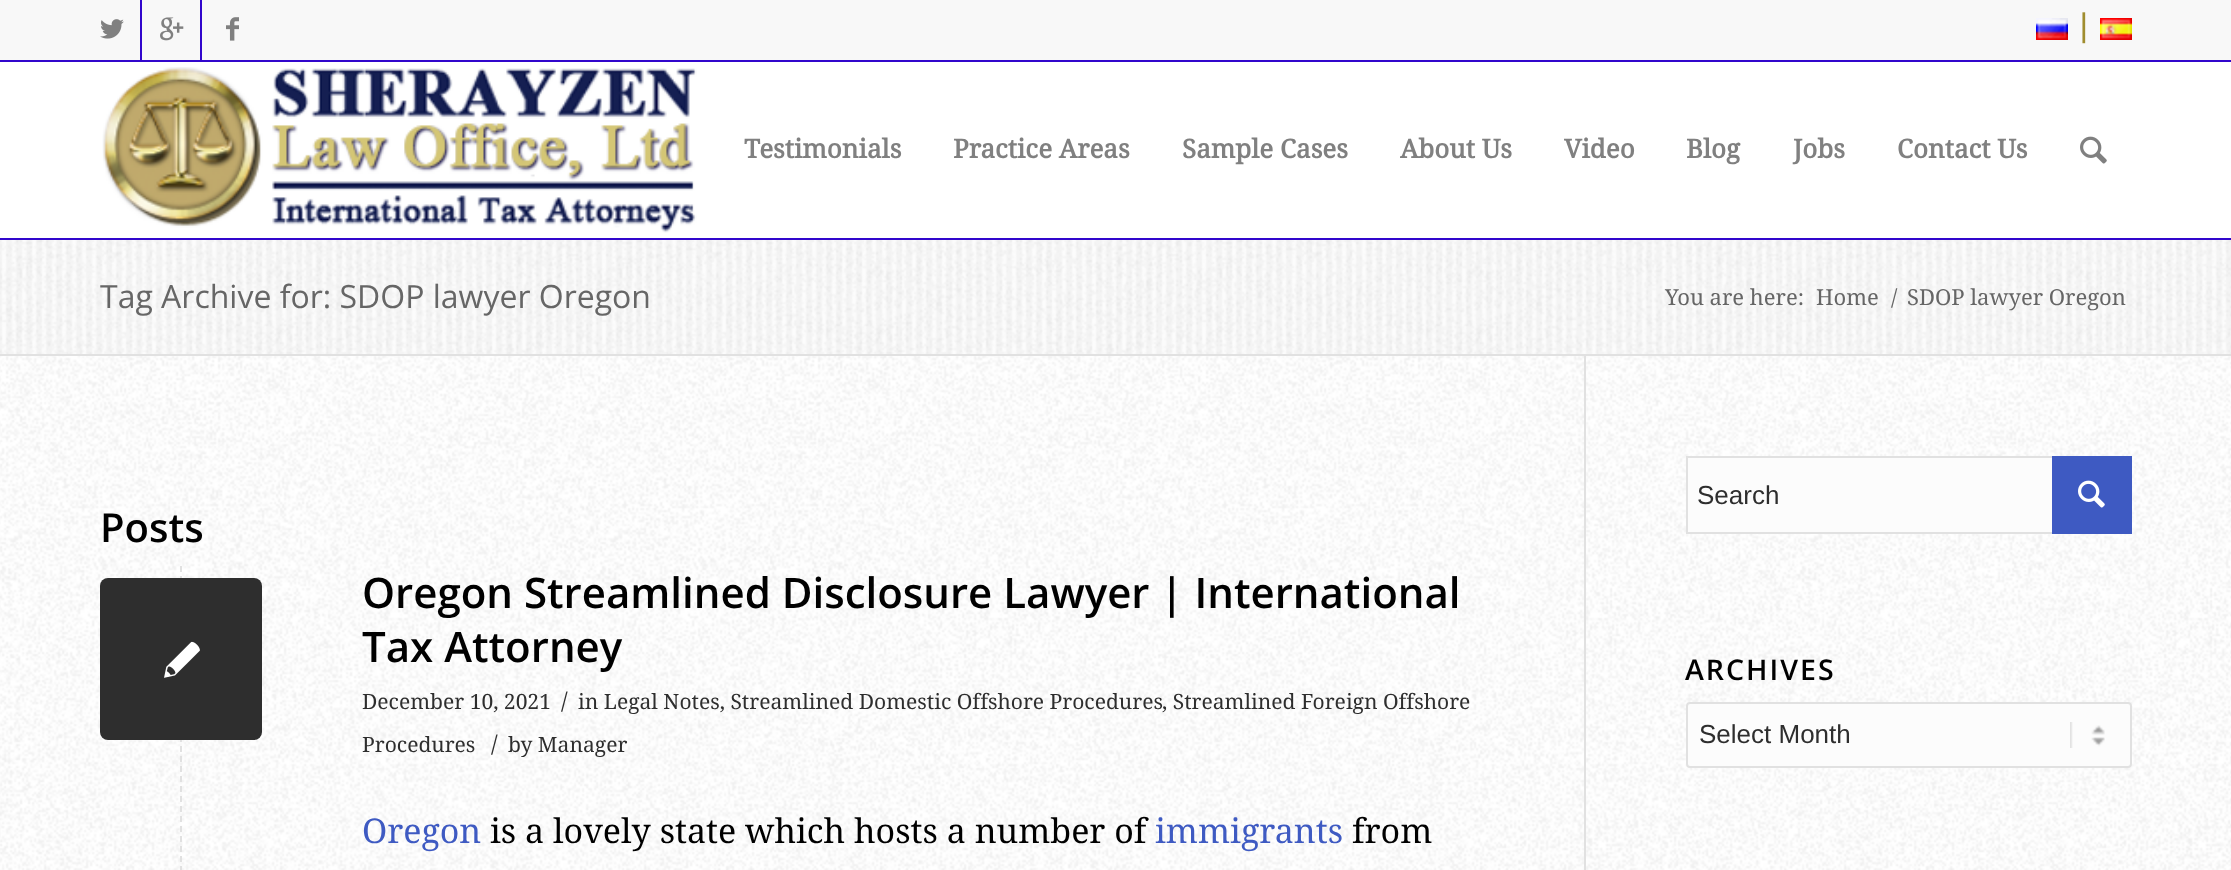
<?xml version="1.0" encoding="UTF-8"?>
<svg xmlns="http://www.w3.org/2000/svg" xmlns:xlink="http://www.w3.org/1999/xlink" width="2231" height="870">
  <rect width="100%" height="100%" fill="#ffffff" />
  <rect width="2231" height="60" fill="#f8f8f8" />
  <rect y="60" width="2231" height="2" fill="#3106cc" />
  <rect x="140" width="2" height="60" fill="#3106cc" />
  <image x="100" y="19" width="24" height="20" xlink:href="image1.png" />
  <rect x="200" width="2" height="60" fill="#3106cc" />
  <image x="160" y="17" width="24" height="24" xlink:href="image2.png" />
  <image x="226" y="17" width="13" height="24" xlink:href="image3.png" />
  <image x="2036" y="18" width="32" height="22" xlink:href="image4.png" />
  <image x="2100" y="18" width="32" height="22" xlink:href="image5.png" />
  <rect y="238" width="2231" height="2" fill="#3106cc" />
  <image x="102" y="67" width="595" height="166" xlink:href="image6.png" />
  <image x="2080" y="136" width="27" height="28" xlink:href="image7.png" />
  <rect y="240" width="2231" height="114" fill="#fcfcfc" />
  <image x="0" y="240" width="2231" height="114" xlink:href="image8.png" />
  <image x="0" y="356" width="2231" height="514" xlink:href="image9.png" />
  <rect y="354" width="2231" height="2" fill="#e1e1e1" />
  <rect x="1584" y="356" width="2" height="514" fill="#e1e1e1" />
  <path d="M 181 566 v 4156" fill="none" stroke="#e1e1e1" stroke-width="2" stroke-dasharray="6 4" />
  <rect x="100" y="578" width="162" height="162" rx="8" fill="#2e2e2e" />
  <image x="164" y="641" width="36" height="37" xlink:href="image10.png" />
  <rect x="1688" y="458" width="364" height="74" fill="#fcfcfc" />
  <rect x="1687" y="457" width="444" height="76" fill="none" stroke="#e1e1e1" stroke-width="2" />
  <rect x="2052" y="456" width="80" height="78" fill="#3e5ac2" />
  <image x="2078" y="480" width="27" height="28" xlink:href="image11.png" />
  <rect x="1686" y="702" width="446" height="66" rx="4" fill="#fcfcfc" />
  <image x="2070" y="722" width="35" height="26" xlink:href="image12.png" />
  <rect x="1687" y="703" width="444" height="64" rx="3" fill="none" stroke="#e1e1e1" stroke-width="2" />
  <text x="2075" y="36" style="font-family: Droid Serif; font-size: 30px; font-weight: bold; fill: #a08d2f">|</text>
  <text x="744" y="158" style="font-family: Droid Serif; font-size: 26px; font-weight: bold; fill: #808080">Testimonials</text>
  <text x="953" y="158" style="font-family: Droid Serif; font-size: 26px; font-weight: bold; fill: #808080">Practice Areas</text>
  <text x="1182" y="158" style="font-family: Droid Serif; font-size: 26px; font-weight: bold; fill: #808080">Sample Cases</text>
  <text x="1400" y="158" style="font-family: Droid Serif; font-size: 26px; font-weight: bold; fill: #808080">About Us</text>
  <text x="1564" y="158" style="font-family: Droid Serif; font-size: 26px; font-weight: bold; fill: #808080">Video</text>
  <text x="1686" y="158" style="font-family: Droid Serif; font-size: 26px; font-weight: bold; fill: #808080">Blog</text>
  <text x="1793" y="158" style="font-family: Droid Serif; font-size: 26px; font-weight: bold; fill: #808080">Jobs</text>
  <text x="1897" y="158" style="font-family: Droid Serif; font-size: 26px; font-weight: bold; fill: #808080">Contact Us</text>
  <text x="100" y="308" style="font-family: Open Sans; font-size: 32px; fill: #666666">Tag Archive for: SDOP lawyer Oregon</text>
  <text x="1665" y="305" style="font-family: Droid Serif; font-size: 22px; fill: #666666">You are here:</text>
  <text x="1816" y="305" style="font-family: Droid Serif; font-size: 22px; fill: #666666">Home</text>
  <text x="1891" y="305" style="font-family: Droid Serif; font-size: 22px; fill: #666666">/</text>
  <text x="1907" y="305" style="font-family: Droid Serif; font-size: 22px; fill: #666666">SDOP lawyer Oregon</text>
  <text x="100" y="542" style="font-family: Open Sans; font-size: 40px; font-weight: 600; fill: #000000">Posts</text>
  <text x="362" y="608" style="font-family: Open Sans; font-size: 42px; font-weight: 600; fill: #000000">Oregon Streamlined Disclosure Lawyer | International</text>
  <text x="362" y="662" style="font-family: Open Sans; font-size: 42px; font-weight: 600; fill: #000000">Tax Attorney</text>
  <text x="362" y="709" style="font-family: Droid Serif; font-size: 21.05px; fill: #2e2e2e">December 10, 2021</text>
  <text x="561" y="709" style="font-family: Droid Serif; font-size: 23px; fill: #2e2e2e">/</text>
  <text x="578" y="709" style="font-family: Droid Serif; font-size: 21.05px; fill: #2e2e2e">in Legal Notes, Streamlined Domestic Offshore Procedures</text>
  <text x="1162" y="709" style="font-family: Droid Serif; font-size: 21.05px; fill: #2e2e2e">, Streamlined Foreign Offshore</text>
  <text x="362" y="752" style="font-family: Droid Serif; font-size: 21.05px; fill: #2e2e2e">Procedures</text>
  <text x="491" y="752" style="font-family: Droid Serif; font-size: 23px; fill: #2e2e2e">/</text>
  <text x="508" y="752" style="font-family: Droid Serif; font-size: 21.05px; fill: #2e2e2e">by Manager</text>
  <text x="362" y="843" style="font-family: Droid Serif; font-size: 34px; fill: #3e5ac2">Oregon</text>
  <text x="490" y="843" style="font-family: Droid Serif; font-size: 34px; fill: #000000">is a lovely state which hosts a number of</text>
  <text x="1155" y="843" style="font-family: Droid Serif; font-size: 34px; fill: #3e5ac2">immigrants</text>
  <text x="1352" y="843" style="font-family: Droid Serif; font-size: 34px; fill: #000000">from</text>
  <text x="1697" y="504" style="font-family: Liberation Sans; font-size: 26px; fill: #2e2e2e">Search</text>
  <text x="1685" y="680" style="font-family: Open Sans; font-size: 28.5px; font-weight: 600; letter-spacing: 2px; fill: #000000">ARCHIVES</text>
  <text x="1699" y="743" style="font-family: Liberation Sans; font-size: 26px; fill: #2e2e2e">Select Month</text>
</svg>
